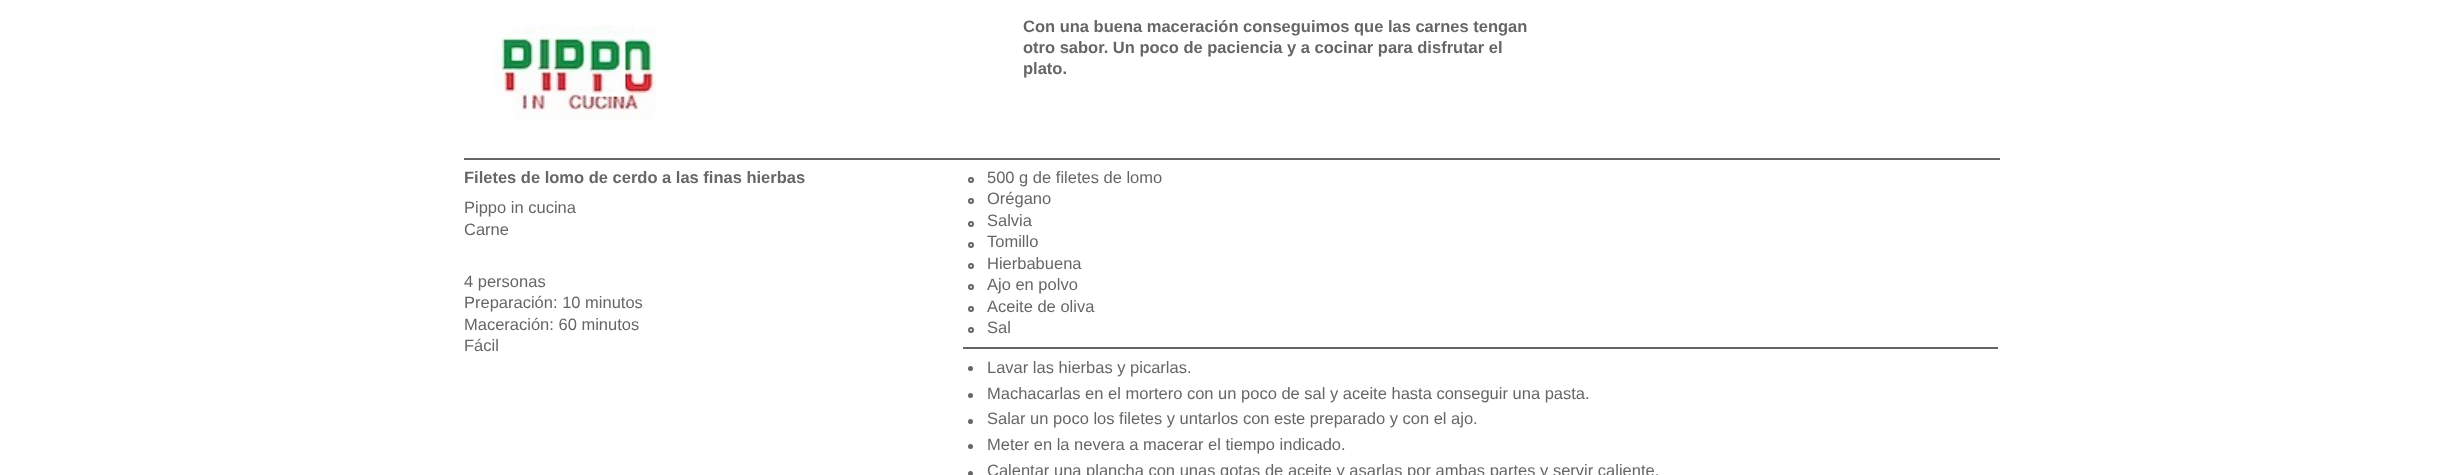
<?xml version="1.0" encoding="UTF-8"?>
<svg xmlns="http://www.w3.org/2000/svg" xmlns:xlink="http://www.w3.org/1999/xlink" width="2463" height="475">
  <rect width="100%" height="100%" fill="#ffffff" />
  <rect x="464" y="158" width="1536" height="2" fill="#666666" />
  <image x="493" y="25" width="164" height="96" xlink:href="image1.png" />
  <circle cx="971" cy="180" r="2" fill="none" stroke="#666666" stroke-width="2" />
  <circle cx="971" cy="201" r="2" fill="none" stroke="#666666" stroke-width="2" />
  <circle cx="971" cy="224" r="2" fill="none" stroke="#666666" stroke-width="2" />
  <circle cx="971" cy="245" r="2" fill="none" stroke="#666666" stroke-width="2" />
  <circle cx="971" cy="266" r="2" fill="none" stroke="#666666" stroke-width="2" />
  <circle cx="971" cy="287" r="2" fill="none" stroke="#666666" stroke-width="2" />
  <circle cx="971" cy="309" r="2" fill="none" stroke="#666666" stroke-width="2" />
  <circle cx="971" cy="330" r="2" fill="none" stroke="#666666" stroke-width="2" />
  <rect x="963" y="347" width="1035" height="2" fill="#666666" />
  <circle cx="970.5" cy="368.5" r="2.5" fill="#666666" />
  <circle cx="970.5" cy="395.5" r="2.5" fill="#666666" />
  <circle cx="970.5" cy="421.5" r="2.5" fill="#666666" />
  <circle cx="970.5" cy="446.5" r="2.5" fill="#666666" />
  <circle cx="970.5" cy="473.5" r="2.5" fill="#666666" />
  <text x="1023" y="32" style="font-family: Liberation Sans; font-size: 16.5px; font-weight: bold; fill: #666666">Con una buena maceración conseguimos que las carnes tengan</text>
  <text x="1023" y="53" style="font-family: Liberation Sans; font-size: 16.5px; font-weight: bold; fill: #666666">otro sabor. Un poco de paciencia y a cocinar para disfrutar el</text>
  <text x="1023" y="74" style="font-family: Liberation Sans; font-size: 16.5px; font-weight: bold; fill: #666666">plato.</text>
  <text x="464" y="183" style="font-family: Liberation Sans; font-size: 16.5px; font-weight: bold; fill: #666666">Filetes de lomo de cerdo a las finas hierbas</text>
  <text x="464" y="213" style="font-family: Liberation Sans; font-size: 16.5px; fill: #666666">Pippo in cucina</text>
  <text x="464" y="235" style="font-family: Liberation Sans; font-size: 16.5px; fill: #666666">Carne</text>
  <text x="464" y="287" style="font-family: Liberation Sans; font-size: 16.5px; fill: #666666">4 personas</text>
  <text x="464" y="308" style="font-family: Liberation Sans; font-size: 16.5px; fill: #666666">Preparación: 10 minutos</text>
  <text x="464" y="330" style="font-family: Liberation Sans; font-size: 16.5px; fill: #666666">Maceración: 60 minutos</text>
  <text x="464" y="351" style="font-family: Liberation Sans; font-size: 16.5px; fill: #666666">Fácil</text>
  <text x="987" y="183" style="font-family: Liberation Sans; font-size: 16.5px; fill: #666666">500 g de filetes de lomo</text>
  <text x="987" y="204" style="font-family: Liberation Sans; font-size: 16.5px; fill: #666666">Orégano</text>
  <text x="987" y="226" style="font-family: Liberation Sans; font-size: 16.5px; fill: #666666">Salvia</text>
  <text x="987" y="247" style="font-family: Liberation Sans; font-size: 16.5px; fill: #666666">Tomillo</text>
  <text x="987" y="269" style="font-family: Liberation Sans; font-size: 16.5px; fill: #666666">Hierbabuena</text>
  <text x="987" y="290" style="font-family: Liberation Sans; font-size: 16.5px; fill: #666666">Ajo en polvo</text>
  <text x="987" y="312" style="font-family: Liberation Sans; font-size: 16.5px; fill: #666666">Aceite de oliva</text>
  <text x="987" y="333" style="font-family: Liberation Sans; font-size: 16.5px; fill: #666666">Sal</text>
  <text x="987" y="373" style="font-family: Liberation Sans; font-size: 16.5px; fill: #666666">Lavar las hierbas y picarlas.</text>
  <text x="987" y="399" style="font-family: Liberation Sans; font-size: 16.5px; fill: #666666">Machacarlas en el mortero con un poco de sal y aceite hasta conseguir una pasta.</text>
  <text x="987" y="424" style="font-family: Liberation Sans; font-size: 16.5px; fill: #666666">Salar un poco los filetes y untarlos con este preparado y con el ajo.</text>
  <text x="987" y="450" style="font-family: Liberation Sans; font-size: 16.5px; fill: #666666">Meter en la nevera a macerar el tiempo indicado.</text>
  <text x="987" y="476" style="font-family: Liberation Sans; font-size: 16.5px; fill: #666666">Calentar una plancha con unas gotas de aceite y asarlas por ambas partes y servir caliente.</text>
</svg>
